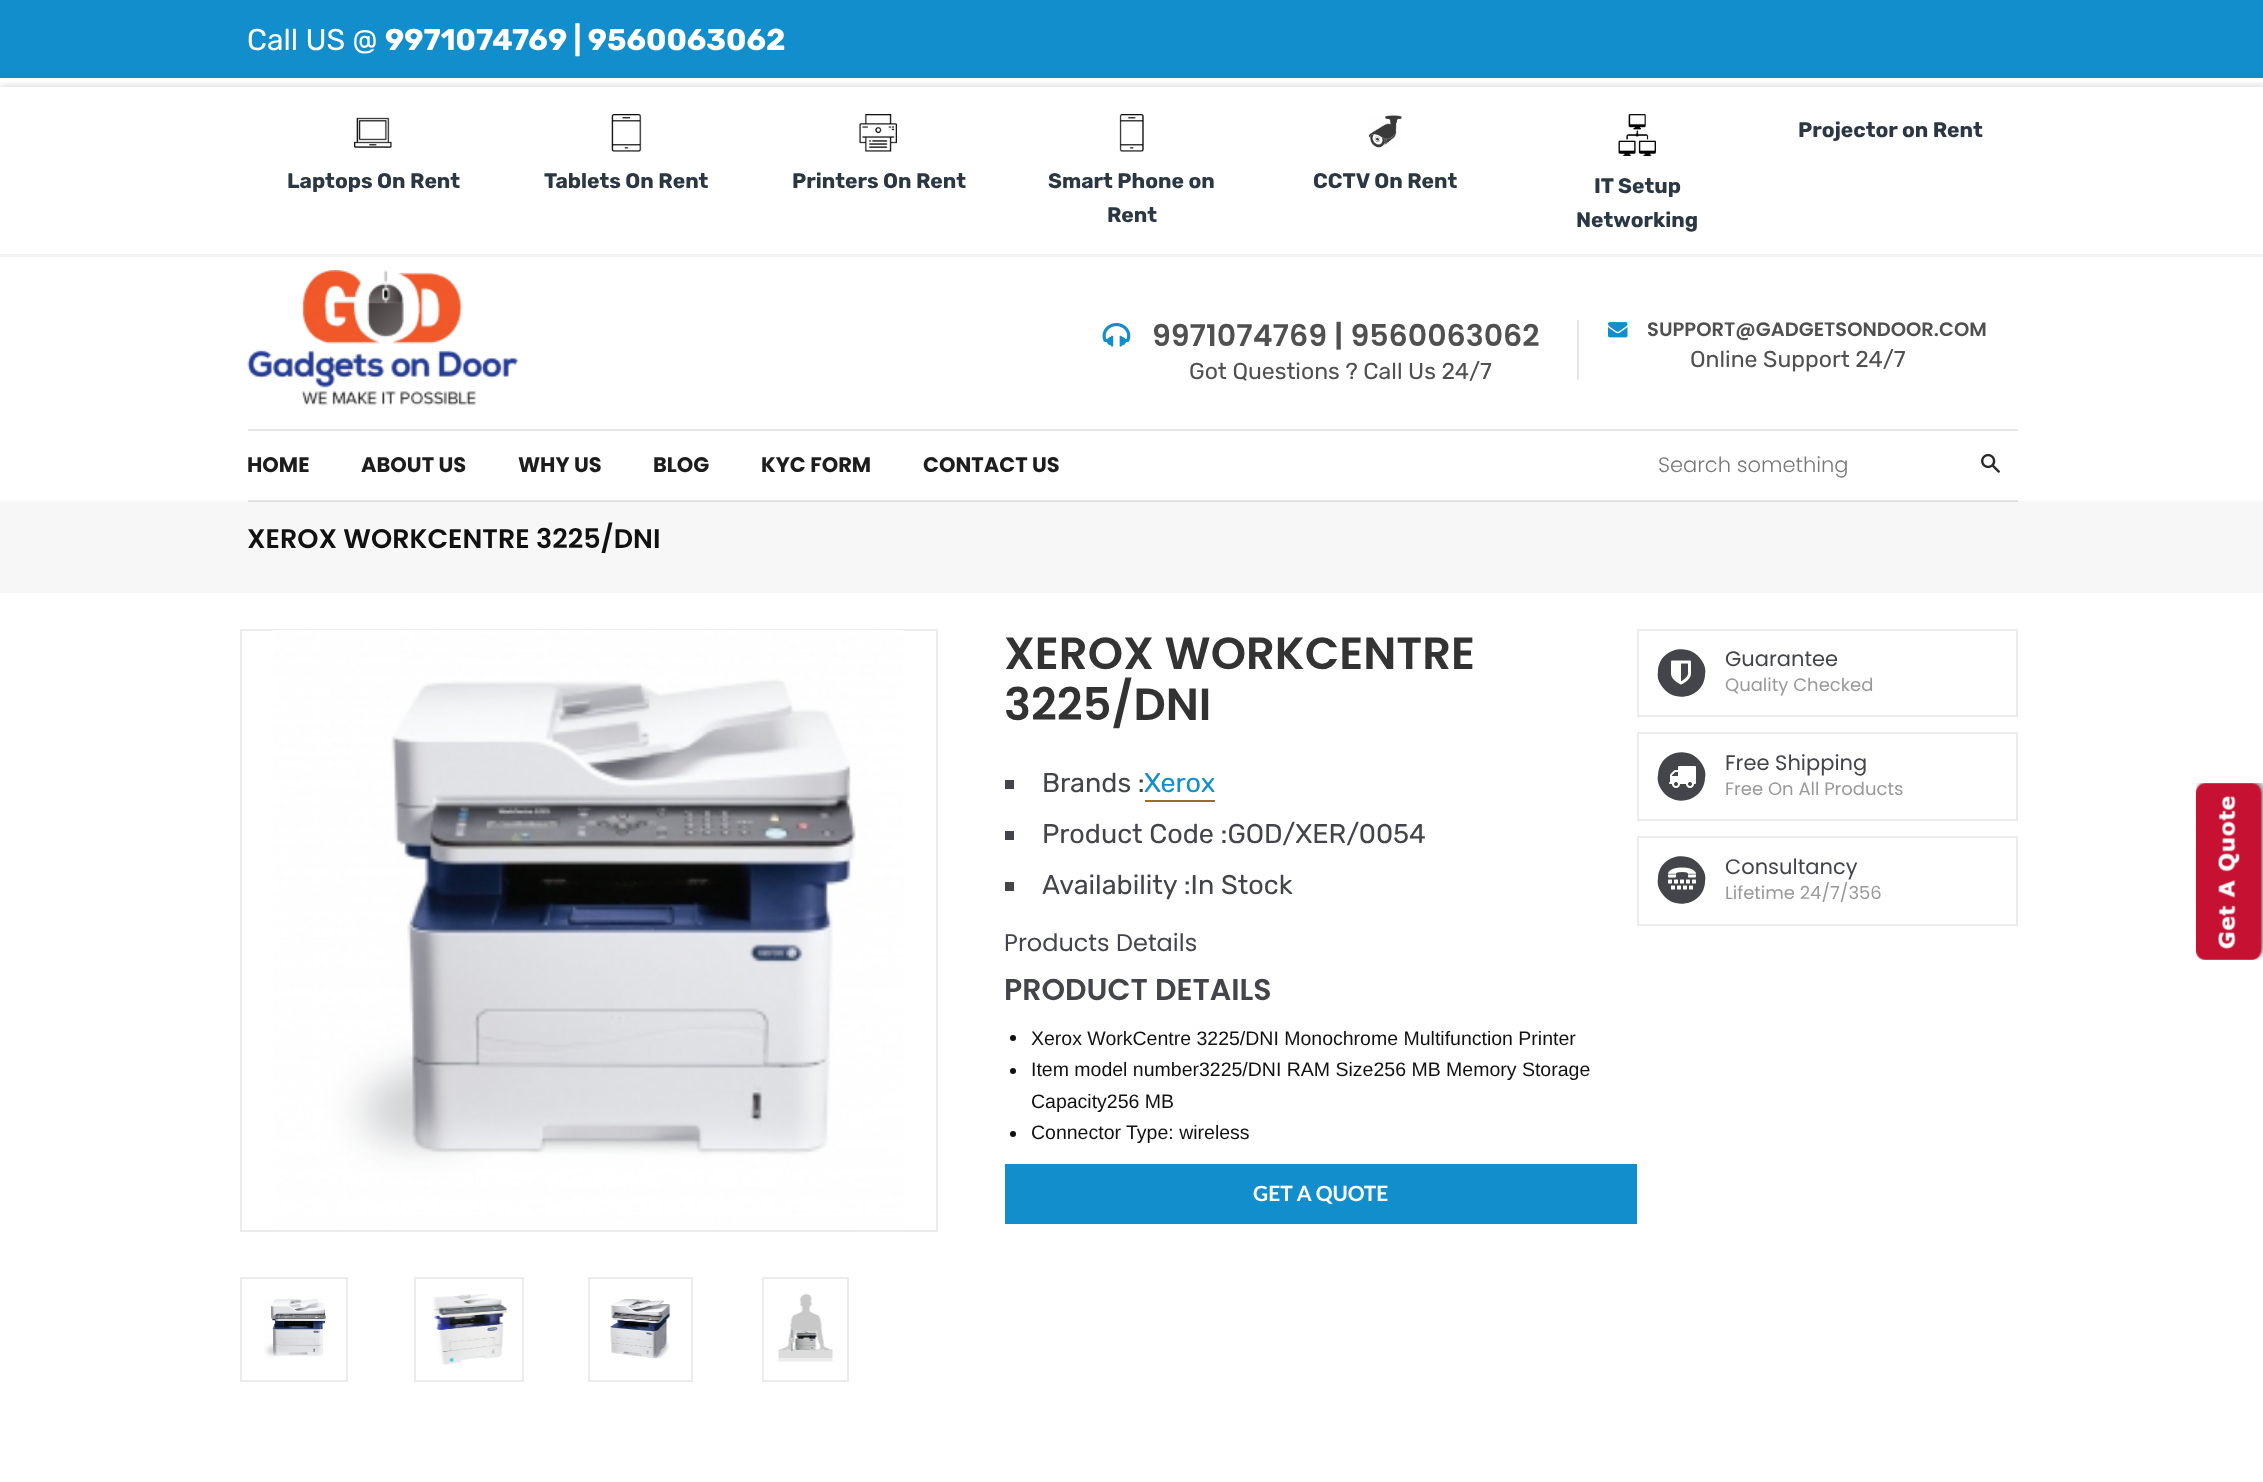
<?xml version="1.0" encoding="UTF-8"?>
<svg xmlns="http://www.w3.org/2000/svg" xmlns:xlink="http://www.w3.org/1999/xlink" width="2263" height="1482">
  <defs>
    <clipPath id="clip1"><rect x="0" y="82" width="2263" height="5" /></clipPath>
  </defs>
  <rect width="100%" height="100%" fill="#ffffff" />
  <rect x="248" y="500" width="1770" height="1" fill="#e6e6e6" />
  <g clip-path="url(#clip1)">
    <rect y="87" width="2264" height="170" fill="#000000" fill-opacity="0.2" filter="blur(4px)" />
  </g>
  <rect width="2263" height="78" fill="#128ecd" />
  <rect y="254" width="2263" height="3" fill="#f2f2f2" />
  <image x="354" y="117" width="38" height="31" xlink:href="image1.png" />
  <image x="611" y="114" width="31" height="38" xlink:href="image2.png" />
  <image x="859" y="114" width="38" height="38" xlink:href="image3.png" />
  <image x="1119" y="114" width="25" height="38" xlink:href="image4.png" />
  <image x="1368" y="115" width="34" height="33" xlink:href="image5.png" />
  <image x="1618" y="114" width="38" height="42" xlink:href="image6.png" />
  <rect y="257" width="2263" height="7" fill="#ffffff" />
  <image x="247" y="270" width="271" height="136" xlink:href="image7.png" />
  <image x="1102" y="322" width="29" height="25" xlink:href="image8.png" />
  <rect x="1577" y="320" width="2" height="60" fill="#e6e6e6" />
  <image x="1608" y="322" width="20" height="16" xlink:href="image9.png" />
  <rect x="248" y="429" width="1770" height="2" fill="#e6e6e6" />
  <image x="1981" y="453" width="19" height="20" xlink:href="image10.png" />
  <rect y="501" width="2263" height="92" fill="#f7f7f7" />
  <rect x="248" y="501" width="1770" height="1" fill="#dedede" />
  <rect x="241" y="630" width="696" height="601" fill="none" stroke="#ebebeb" stroke-width="2" />
  <image x="273" y="630" width="630" height="600" xlink:href="image11.png" />
  <rect x="241" y="1278" width="106" height="103" fill="none" stroke="#ebebeb" stroke-width="2" />
  <image x="264" y="1299" width="62" height="59" xlink:href="image12.png" />
  <rect x="415" y="1278" width="108" height="103" fill="none" stroke="#ebebeb" stroke-width="2" />
  <image x="432" y="1293" width="76" height="72" xlink:href="image13.png" />
  <rect x="589" y="1278" width="103" height="103" fill="none" stroke="#ebebeb" stroke-width="2" />
  <image x="610" y="1298" width="61" height="61" xlink:href="image14.png" />
  <rect x="763" y="1278" width="85" height="103" fill="none" stroke="#ebebeb" stroke-width="2" />
  <image x="778" y="1294" width="55" height="68" xlink:href="image15.png" />
  <rect x="1005" y="780" width="9" height="9" fill="#43454b" />
  <rect x="1145" y="800" width="70" height="2" fill="#a26b25" />
  <rect x="1005" y="831" width="9" height="9" fill="#43454b" />
  <rect x="1005" y="882" width="9" height="9" fill="#43454b" />
  <circle cx="1013" cy="1038" r="3" fill="#111111" />
  <circle cx="1013" cy="1071" r="3" fill="#111111" />
  <circle cx="1013" cy="1134" r="3" fill="#111111" />
  <rect x="1005" y="1164" width="632" height="60" fill="#128ecd" />
  <rect x="1638" y="630" width="379" height="86" fill="none" stroke="#ebebeb" stroke-width="2" />
  <path d="M 1702 661 c 3 4 4 9 3 14 c -1 23 -32 30 -44 10 c -3 -4 -4 -9 -3 -14 c 1 -23 32 -30 44 -10 z" fill="#43454b" />
  <image x="1671" y="660" width="20" height="25" xlink:href="image16.png" />
  <rect x="1638" y="733" width="379" height="87" fill="none" stroke="#ebebeb" stroke-width="2" />
  <path d="M 1702 764 c 3 5 4 9 3 14 c -1 24 -32 31 -44 11 c -3 -5 -4 -9 -3 -14 c 1 -24 32 -31 44 -11 z" fill="#43454b" />
  <image x="1669" y="766" width="27" height="22" xlink:href="image17.png" />
  <rect x="1638" y="837" width="379" height="88" fill="none" stroke="#ebebeb" stroke-width="2" />
  <path d="M 1702 868 c 3 4 4 9 3 14 c -1 23 -32 30 -44 10 c -3 -4 -4 -9 -3 -14 c 1 -23 32 -30 44 -10 z" fill="#43454b" />
  <image x="1668" y="867" width="28" height="23" xlink:href="image18.png" />
  <image x="2196" y="783" width="67" height="177" xlink:href="image19.png" />
  <text x="247" y="50" style="font-family: Rubik; font-size: 30px; fill: #ffffff">Call US @</text>
  <text x="385" y="50" style="font-family: Rubik; font-size: 30px; font-weight: bold; fill: #ffffff">9971074769 | 9560063062</text>
  <text x="1798" y="137" style="font-family: Rubik; font-size: 21px; font-weight: bold; fill: #2b3743">Projector on Rent</text>
  <text x="287" y="188" style="font-family: Rubik; font-size: 21px; font-weight: bold; fill: #2b3743">Laptops On Rent</text>
  <text x="544" y="188" style="font-family: Rubik; font-size: 21px; font-weight: bold; fill: #2b3743">Tablets On Rent</text>
  <text x="792" y="188" style="font-family: Rubik; font-size: 21px; font-weight: bold; fill: #2b3743">Printers On Rent</text>
  <text x="1048" y="188" style="font-family: Rubik; font-size: 21px; font-weight: bold; fill: #2b3743">Smart Phone on</text>
  <text x="1107" y="222" style="font-family: Rubik; font-size: 21px; font-weight: bold; fill: #2b3743">Rent</text>
  <text x="1313" y="188" style="font-family: Rubik; font-size: 21px; font-weight: bold; fill: #2b3743">CCTV On Rent</text>
  <text x="1594" y="193" style="font-family: Rubik; font-size: 21px; font-weight: bold; fill: #2b3743">IT Setup</text>
  <text x="1576" y="227" style="font-family: Rubik; font-size: 21px; font-weight: bold; fill: #2b3743">Networking</text>
  <text x="1152" y="346" style="font-family: Poppins; font-size: 30px; font-weight: 600; fill: #505050">9971074769 | 9560063062</text>
  <text x="1189" y="379" style="font-family: Rubik; font-size: 23px; fill: #505050">Got Questions ? Call Us 24/7</text>
  <text x="1647" y="336" style="font-family: Poppins; font-size: 19.5px; font-weight: 600; fill: #505050">SUPPORT@GADGETSONDOOR.COM</text>
  <text x="1690" y="367" style="font-family: Rubik; font-size: 23px; fill: #505050">Online Support 24/7</text>
  <text x="247" y="472" style="font-family: Poppins; font-size: 21px; font-weight: bold; fill: #1d1d1d">HOME</text>
  <text x="361" y="472" style="font-family: Poppins; font-size: 21px; font-weight: bold; fill: #1d1d1d">ABOUT US</text>
  <text x="518" y="472" style="font-family: Poppins; font-size: 21px; font-weight: bold; fill: #1d1d1d">WHY US</text>
  <text x="653" y="472" style="font-family: Poppins; font-size: 21px; font-weight: bold; fill: #1d1d1d">BLOG</text>
  <text x="761" y="472" style="font-family: Poppins; font-size: 21px; font-weight: bold; fill: #1d1d1d">KYC FORM</text>
  <text x="923" y="472" style="font-family: Poppins; font-size: 21px; font-weight: bold; fill: #1d1d1d">CONTACT US</text>
  <text x="1658" y="472" style="font-family: Poppins; font-size: 21px; font-weight: 300; fill: #777777">Search something</text>
  <text x="247" y="548" style="font-family: Poppins; font-size: 27px; font-weight: 600; fill: #111111">XEROX WORKCENTRE 3225/DNI</text>
  <text x="1004" y="669" style="font-family: Poppins; font-size: 45px; font-weight: 600; fill: #333333">XEROX WORKCENTRE</text>
  <text x="1004" y="720" style="font-family: Poppins; font-size: 45px; font-weight: 600; fill: #333333">3225/DNI</text>
  <text x="1042" y="792" style="font-family: Rubik; font-size: 27px; fill: #43454b">Brands :</text>
  <text x="1144" y="792" style="font-family: Rubik; font-size: 27px; fill: #128ecd">Xerox</text>
  <text x="1042" y="843" style="font-family: Rubik; font-size: 27px; fill: #43454b">Product Code :GOD/XER/0054</text>
  <text x="1042" y="894" style="font-family: Rubik; font-size: 27px; fill: #43454b">Availability :In Stock</text>
  <text x="1004" y="951" style="font-family: Poppins; font-size: 24px; fill: #43454b">Products Details</text>
  <text x="1004" y="1000" style="font-family: Poppins; font-size: 30px; font-weight: 600; fill: #43454b">PRODUCT DETAILS</text>
  <text x="1031" y="1045" style="font-family: Liberation Sans; font-size: 19.5px; fill: #111111">Xerox WorkCentre 3225/DNI Monochrome Multifunction Printer</text>
  <text x="1031" y="1076" style="font-family: Liberation Sans; font-size: 19.5px; fill: #111111">Item model number3225/DNI RAM Size256 MB Memory Storage</text>
  <text x="1031" y="1108" style="font-family: Liberation Sans; font-size: 19.5px; fill: #111111">Capacity256 MB</text>
  <text x="1031" y="1139" style="font-family: Liberation Sans; font-size: 19.5px; fill: #111111">Connector Type: wireless</text>
  <text x="1253" y="1201" style="font-family: Lato; font-size: 21px; font-weight: bold; fill: #ffffff">GET A QUOTE</text>
  <text x="1725" y="666" style="font-family: Poppins; font-size: 21px; fill: #43454b">Guarantee</text>
  <text x="1725" y="691" style="font-family: Poppins; font-size: 18px; fill: #999999">Quality Checked</text>
  <text x="1725" y="770" style="font-family: Poppins; font-size: 21px; fill: #43454b">Free Shipping</text>
  <text x="1725" y="795" style="font-family: Poppins; font-size: 18px; fill: #999999">Free On All Products</text>
  <text x="1725" y="874" style="font-family: Poppins; font-size: 21px; fill: #43454b">Consultancy</text>
  <text x="1725" y="899" style="font-family: Poppins; font-size: 18px; fill: #999999">Lifetime 24/7/356</text>
</svg>
